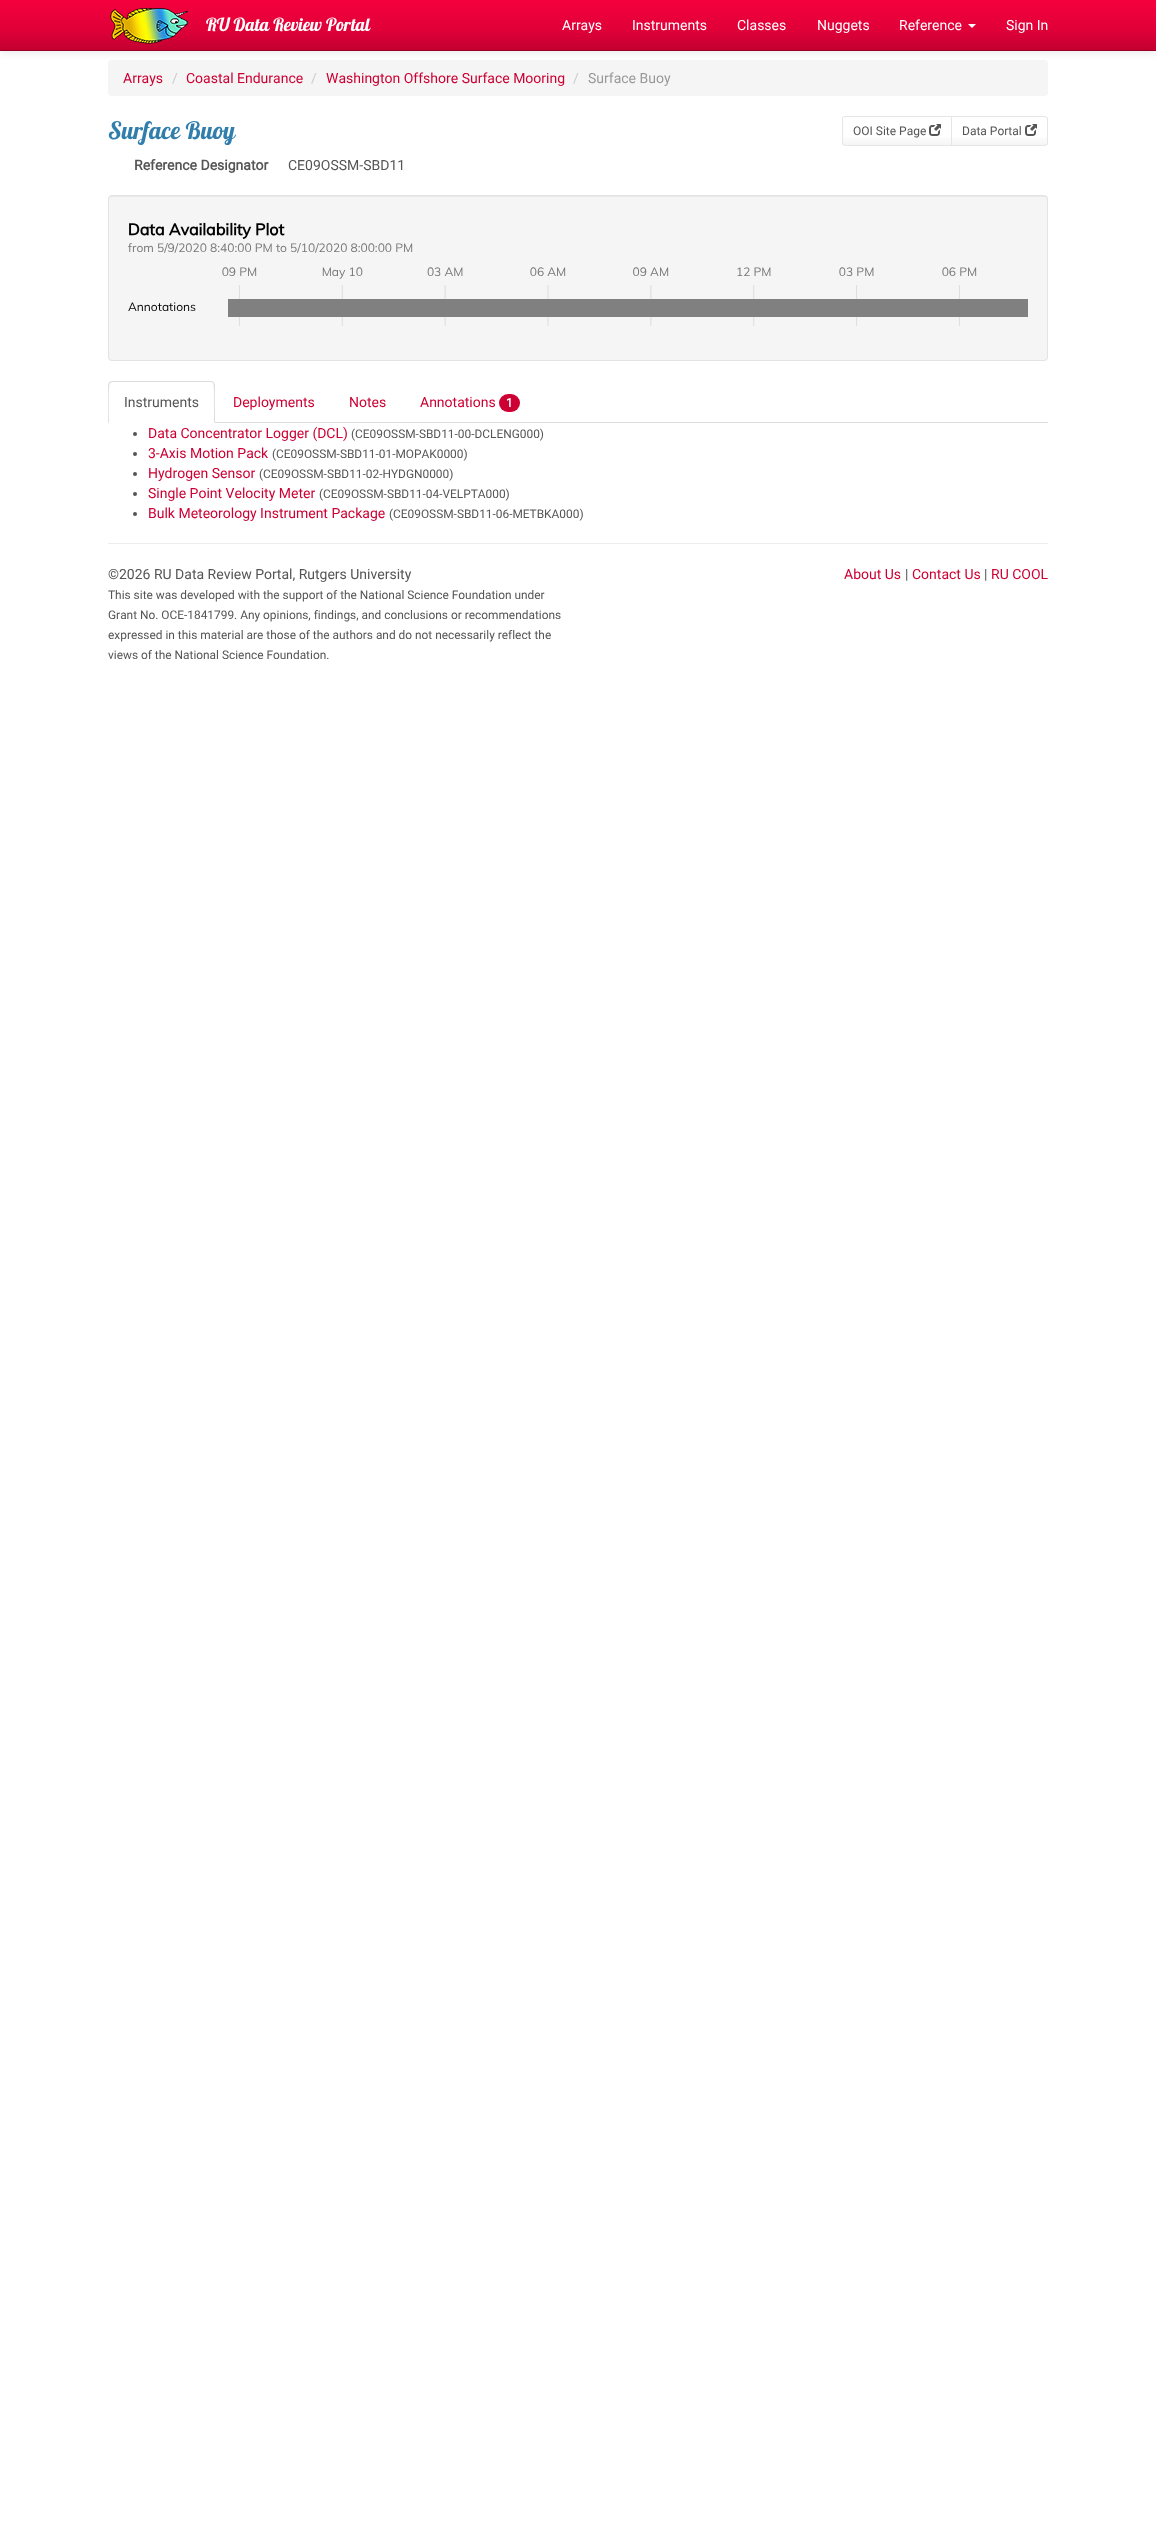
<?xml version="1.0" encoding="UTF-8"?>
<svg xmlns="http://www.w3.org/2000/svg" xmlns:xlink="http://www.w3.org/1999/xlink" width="1156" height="2537">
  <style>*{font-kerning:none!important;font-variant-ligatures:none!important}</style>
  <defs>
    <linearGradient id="g1" gradientUnits="userSpaceOnUse" x1="578" y1="0" x2="578" y2="50"><stop offset="0" stop-color="#f5003d" /><stop offset="0.6" stop-color="#e00038" /><stop offset="1" stop-color="#c20030" /></linearGradient>
    <linearGradient id="g2" gradientUnits="userSpaceOnUse" x1="897" y1="117" x2="897" y2="145"><stop offset="0" stop-color="#ffffff" /><stop offset="0.6" stop-color="#ffffff" /><stop offset="1" stop-color="#f5f5f5" /></linearGradient>
    <linearGradient id="g3" gradientUnits="userSpaceOnUse" x1="1000" y1="117" x2="1000" y2="145"><stop offset="0" stop-color="#ffffff" /><stop offset="0.6" stop-color="#ffffff" /><stop offset="1" stop-color="#f5f5f5" /></linearGradient>
  </defs>
  <rect width="100%" height="100%" fill="#ffffff" />
  <rect x="108" y="60" width="940" height="36" rx="4" fill="#f5f5f5" />
  <rect y="1" width="1156" height="51" fill="#000000" fill-opacity="0.1" filter="blur(5px)" />
  <rect width="1156" height="50" fill="url(#g1)" />
  <rect y="50" width="1156" height="1" fill="#990026" />
  <image x="110" y="8" width="78" height="36" xlink:href="image1.png" />
  <path d="M 968 24 h 8 l -4 4 z" fill="#ffffff" />
  <rect x="843" y="137" width="108" height="8" fill="url(#g2)" />
  <path d="M 845 116 l -2 1 l 1 1 l 1 -1 h 106 l 1 -1 z" fill="#e6e6e6" />
  <path d="M 952 146 l -1 -1 h -106 l -1 -1 l -1 1 l 2 1 z" fill="#e6e6e6" />
  <path d="M 842 119 v 24 c 0 1 0 2 1 2 l 0.5 -0.5 c -0.5 -0.5 -0.5 -1 -0.5 -1.5 v -24 c 0 -0.5 0 -1 0.5 -1.5 l -0.5 -0.5 c -1 0 -1 1 -1 2 z" fill="#e6e6e6" />
  <image x="929" y="124" width="12" height="12" xlink:href="image2.png" />
  <path d="M 951 116 h 94 c 1.5 0 3 1.5 3 3 v 24 c 0 1.5 -1.5 3 -3 3 h -94 z" fill="#ffffff" />
  <rect x="952" y="137" width="95" height="8" fill="url(#g3)" />
  <path d="M 951 116 l 1 1 h 93 l 1 1 l 1 -1 l -2 -1 z" fill="#e6e6e6" />
  <path d="M 1048 143 v -24 c 0 -1 0 -2 -1 -2 l -0.5 0.5 c 0.5 0.5 0.5 1 0.5 1.5 v 24 c 0 0.5 0 1 -0.5 1.5 l 0.5 0.5 c 1 0 1 -1 1 -2 z" fill="#e6e6e6" />
  <path d="M 1045 146 l 2 -1 l -1 -1 l -1 1 h -93 l -1 1 z" fill="#e6e6e6" />
  <path d="M 951 116 v 30 l 1 -1 v -28 z" fill="#000000" fill-opacity="0.1" />
  <image x="1025" y="124" width="12" height="12" xlink:href="image2.png" />
  <rect x="108" y="195" width="940" height="166" rx="4" fill="#f5f5f5" />
  <path d="M 112 197 h 932 c 2 0 3 1 3 3 c 0 -2 -1 -4 -3 -4 h -932 c -2 0 -3 2 -3 4 c 0 -2 1 -3 3 -3 z" fill="#e9e9e9" />
  <rect x="108.5" y="195.5" width="939" height="165" rx="3.5" fill="none" stroke="#e3e3e3" />
  <image x="128" y="222" width="900" height="104" xlink:href="image3.png" />
  <rect x="215" y="422" width="833" height="1" fill="#dddddd" />
  <path d="M 112 381 l -3 1 l 1 1 l 2 -1 h 99 l 2 1 l 1 -1 l -3 -1 z" fill="#dddddd" />
  <path d="M 215 423 v -38 c 0 -1 -1 -2 -1 -3 l -1 1 c 2 2 1 34 1 39 z" fill="#dddddd" />
  <path d="M 108 423 l 1 -1 c 0 -5 -1 -37 1 -39 l -1 -1 l -1 3 z" fill="#dddddd" />
  <rect x="499" y="394" width="21" height="18" rx="9" fill="#cc0033" />
  <circle cx="135" cy="434" r="2" fill="#555555" />
  <circle cx="135" cy="454" r="2" fill="#555555" />
  <circle cx="135" cy="474" r="2" fill="#555555" />
  <circle cx="135" cy="494" r="2" fill="#555555" />
  <circle cx="135" cy="514" r="2" fill="#555555" />
  <rect x="108" y="543" width="940" height="1" fill="#eeeeee" />
  <text x="206" y="31" style="font-family: Lobster; font-size: 18px; fill: #ffffff">RU Data Review Portal</text>
  <text x="562" y="30" style="font-family: Roboto; font-size: 14px; fill: #ffffff">Arrays</text>
  <text x="632" y="30" style="font-family: Roboto; font-size: 14px; fill: #ffffff">Instruments</text>
  <text x="737" y="30" style="font-family: Roboto; font-size: 14px; fill: #ffffff">Classes</text>
  <text x="817" y="30" style="font-family: Roboto; font-size: 14px; fill: #ffffff">Nuggets</text>
  <text x="899" y="30" style="font-family: Roboto; font-size: 14px; fill: #ffffff">Reference</text>
  <text x="1006" y="30" style="font-family: Roboto; font-size: 14px; fill: #ffffff">Sign In</text>
  <text x="123" y="83" style="font-family: Roboto; font-size: 14px; fill: #cc0033">Arrays</text>
  <text x="172" y="83" style="font-family: Roboto; font-size: 14px; fill: #cccccc">/</text>
  <text x="186" y="83" style="font-family: Roboto; font-size: 14px; fill: #cc0033">Coastal Endurance</text>
  <text x="311" y="83" style="font-family: Roboto; font-size: 14px; fill: #cccccc">/</text>
  <text x="326" y="83" style="font-family: Roboto; font-size: 14px; fill: #cc0033">Washington Offshore Surface Mooring</text>
  <text x="573" y="83" style="font-family: Roboto; font-size: 14px; fill: #cccccc">/</text>
  <text x="588" y="83" style="font-family: Roboto; font-size: 14px; fill: #999999">Surface Buoy</text>
  <text x="108" y="139" style="font-family: Lobster; font-size: 24px; fill: #317eac">Surface Buoy</text>
  <text x="853" y="135" style="font-family: Roboto; font-size: 12px; fill: #555555">OOI Site Page</text>
  <text x="962" y="135" style="font-family: Roboto; font-size: 12px; fill: #555555">Data Portal</text>
  <text x="134" y="170" style="font-family: Roboto; font-size: 14px; font-weight: bold; fill: #555555">Reference Designator</text>
  <text x="288" y="170" style="font-family: Roboto; font-size: 14px; fill: #555555">CE09OSSM-SBD11</text>
  <text x="124" y="407" style="font-family: Roboto; font-size: 14px; fill: #555555">Instruments</text>
  <text x="233" y="407" style="font-family: Roboto; font-size: 14px; fill: #cc0033">Deployments</text>
  <text x="349" y="407" style="font-family: Roboto; font-size: 14px; fill: #cc0033">Notes</text>
  <text x="420" y="407" style="font-family: Roboto; font-size: 14px; fill: #cc0033">Annotations</text>
  <text x="506" y="407" style="font-family: Roboto; font-size: 12px; font-weight: bold; fill: #ffffff">1</text>
  <text x="148" y="438" style="font-family: Roboto; font-size: 14px; fill: #cc0033">Data Concentrator Logger (DCL)</text>
  <text x="351" y="438" style="font-family: Roboto; font-size: 11.9px; fill: #555555">(CE09OSSM-SBD11-00-DCLENG000)</text>
  <text x="148" y="458" style="font-family: Roboto; font-size: 14px; fill: #cc0033">3-Axis Motion Pack</text>
  <text x="272" y="458" style="font-family: Roboto; font-size: 11.9px; fill: #555555">(CE09OSSM-SBD11-01-MOPAK0000)</text>
  <text x="148" y="478" style="font-family: Roboto; font-size: 14px; fill: #cc0033">Hydrogen Sensor</text>
  <text x="259" y="478" style="font-family: Roboto; font-size: 11.9px; fill: #555555">(CE09OSSM-SBD11-02-HYDGN0000)</text>
  <text x="148" y="498" style="font-family: Roboto; font-size: 14px; fill: #cc0033">Single Point Velocity Meter</text>
  <text x="319" y="498" style="font-family: Roboto; font-size: 11.9px; fill: #555555">(CE09OSSM-SBD11-04-VELPTA000)</text>
  <text x="148" y="518" style="font-family: Roboto; font-size: 14px; fill: #cc0033">Bulk Meteorology Instrument Package</text>
  <text x="389" y="518" style="font-family: Roboto; font-size: 11.9px; fill: #555555">(CE09OSSM-SBD11-06-METBKA000)</text>
  <text x="108" y="579" style="font-family: Roboto; font-size: 14px; fill: #555555">©2026 RU Data Review Portal, Rutgers University</text>
  <text x="108" y="599" style="font-family: Roboto; font-size: 11.9px; fill: #555555">This site was developed with the support of the National Science Foundation under</text>
  <text x="108" y="619" style="font-family: Roboto; font-size: 11.9px; fill: #555555">Grant No. OCE-1841799. Any opinions, findings, and conclusions or recommendations</text>
  <text x="108" y="639" style="font-family: Roboto; font-size: 11.9px; fill: #555555">expressed in this material are those of the authors and do not necessarily reflect the</text>
  <text x="108" y="659" style="font-family: Roboto; font-size: 11.9px; fill: #555555">views of the National Science Foundation.</text>
  <text x="844" y="579" style="font-family: Roboto; font-size: 14px; fill: #cc0033">About Us</text>
  <text x="905" y="579" style="font-family: Roboto; font-size: 14px; fill: #555555">|</text>
  <text x="912" y="579" style="font-family: Roboto; font-size: 14px; fill: #cc0033">Contact Us</text>
  <text x="984" y="579" style="font-family: Roboto; font-size: 14px; fill: #555555">|</text>
  <text x="991" y="579" style="font-family: Roboto; font-size: 14px; fill: #cc0033">RU COOL</text>
</svg>
